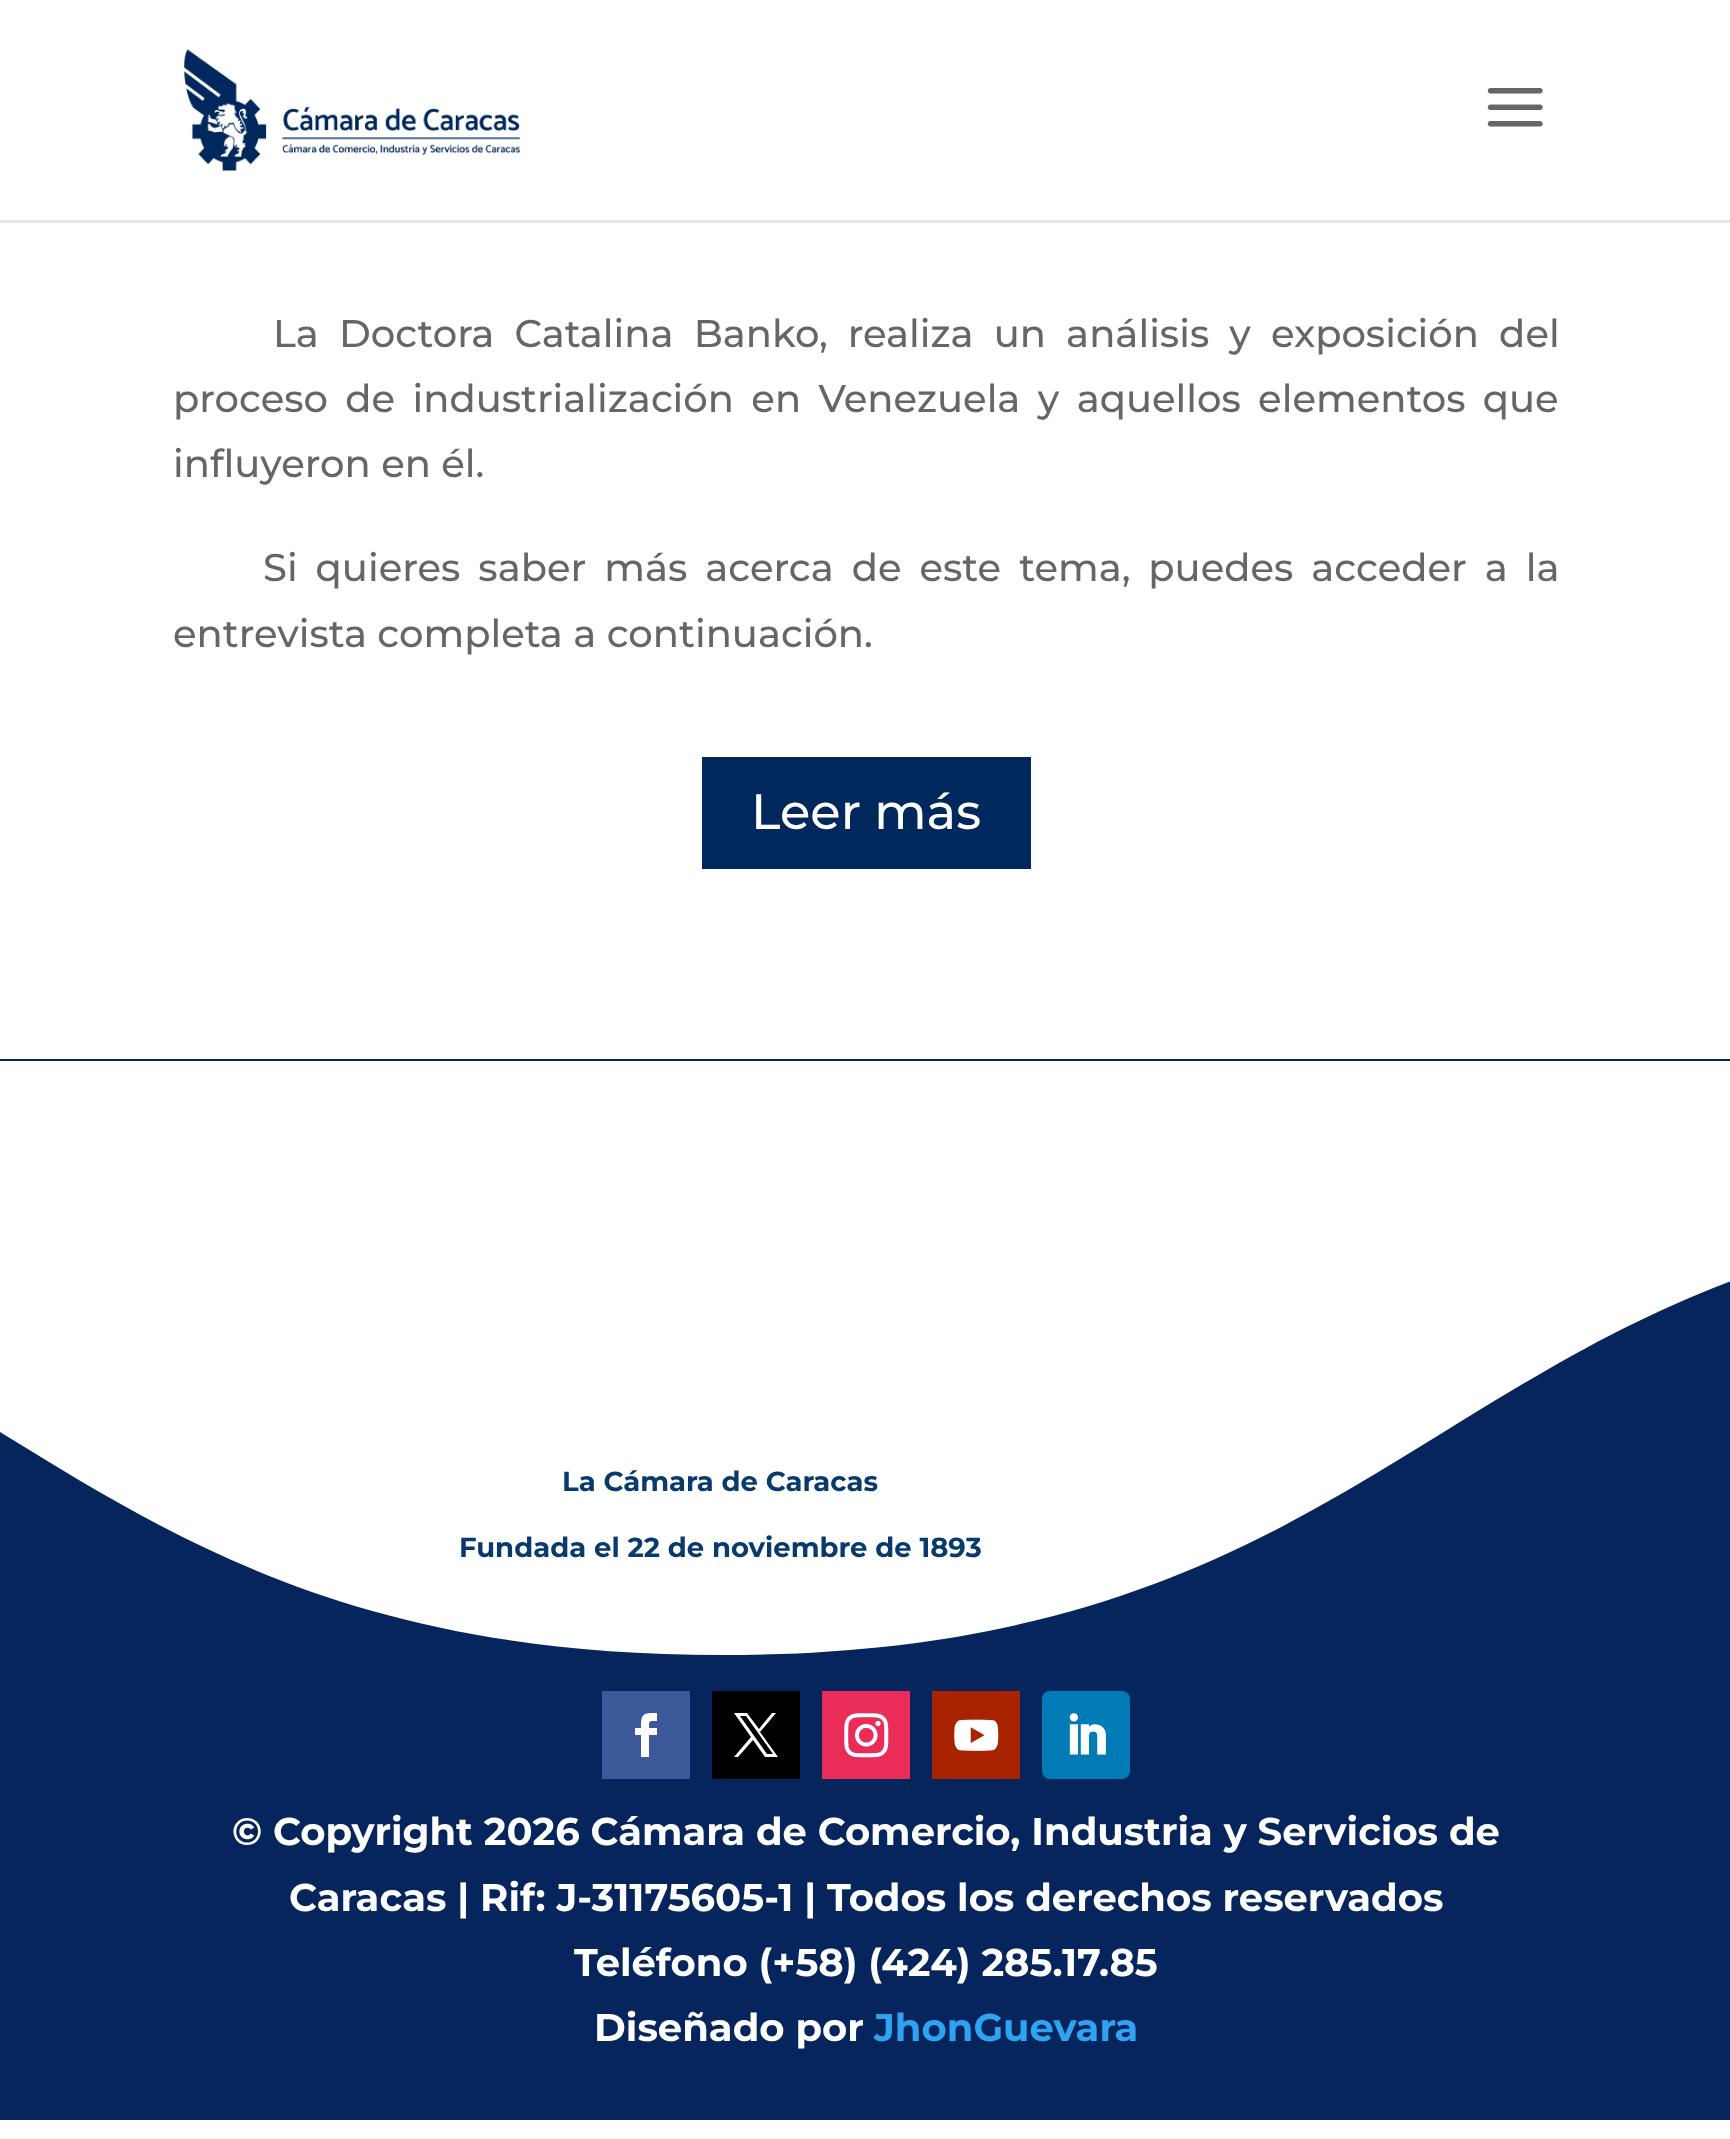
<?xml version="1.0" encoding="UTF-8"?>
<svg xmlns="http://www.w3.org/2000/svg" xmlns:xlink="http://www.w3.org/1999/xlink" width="1730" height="2139">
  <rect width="100%" height="100%" fill="#ffffff" />
  <path d="M 0 220 v 3 h 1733 v -220 h -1 v 217 z" fill="#e6e6e6" />
  <image x="184" y="49" width="336" height="122" xlink:href="image1.png" />
  <image x="1487" y="88" width="56" height="39" xlink:href="image2.png" />
  <rect x="702" y="757" width="329" height="112" fill="#00285c" />
  <rect y="1059" width="1730" height="1061" fill="#05255c" />
  <path d="M 722 1655 c 722 0 722 -446 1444 -446 c 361 0 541 112 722 223 v -371 h -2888 v 371 c 180 111 361 223 722 223 z" fill="#ffffff" />
  <rect x="602" y="1691" width="88" height="88" fill="#3b5998" />
  <path d="M 641 1757 h 8 v -22 h 8 v -7 h -8 c 0 -8 0 -7 8 -7 v -8 c -14 0 -16 0 -16 15 h -6 v 7 h 6 z" fill="#ffffff" />
  <rect x="712" y="1691" width="88" height="88" fill="#000000" />
  <path d="M 734 1713 l 17 24 l -17 20 h 4 l 15 -17 l 12 17 h 13 l -18 -25 l 16 -19 h -4 l -13 16 l -12 -16 z m 6 3 h 6 l 27 38 h -6 z" fill="#ffffff" />
  <rect x="822" y="1691" width="88" height="88" fill="#ea2c59" />
  <image x="844" y="1713" width="45" height="45" xlink:href="image3.png" />
  <rect x="932" y="1691" width="88" height="88" fill="#a82400" />
  <image x="954" y="1719" width="45" height="32" xlink:href="image4.png" />
  <rect x="1042" y="1691" width="88" height="88" rx="8" fill="#007bb6" />
  <image x="1069" y="1713" width="37" height="42" xlink:href="image5.png" />
  <text x="273" y="347" word-spacing="9.75" style="font-family: Montserrat; font-size: 38.5px; font-weight: 100; fill: #666666">La Doctora Catalina Banko, realiza un análisis y exposición del</text>
  <text x="173" y="412" word-spacing="7" style="font-family: Montserrat; font-size: 38.5px; font-weight: 100; fill: #666666">proceso de industrialización en Venezuela y aquellos elementos que</text>
  <text x="173" y="477" style="font-family: Montserrat; font-size: 38.5px; font-weight: 100; fill: #666666">influyeron en él.</text>
  <text x="263" y="581" word-spacing="7.6" style="font-family: Montserrat; font-size: 38.5px; font-weight: 100; fill: #666666">Si quieres saber más acerca de este tema, puedes acceder a la</text>
  <text x="173" y="647" style="font-family: Montserrat; font-size: 38.5px; font-weight: 100; fill: #666666">entrevista completa a continuación.</text>
  <text x="751" y="829" style="font-family: Montserrat; font-size: 49.5px; font-weight: 100; fill: #ffffff">Leer más</text>
  <text x="562" y="1491" style="font-family: 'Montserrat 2'; font-size: 27.5px; font-weight: 100; fill: #083a6e">La Cámara de Caracas</text>
  <text x="459" y="1557" style="font-family: 'Montserrat 2'; font-size: 27.5px; font-weight: 100; fill: #083a6e">Fundada el 22 de noviembre de 1893</text>
  <text x="232" y="1845" style="font-family: 'Montserrat 2'; font-size: 38.5px; font-weight: 100; fill: #ffffff">© Copyright 2026 Cámara de Comercio, Industria y Servicios de</text>
  <text x="289" y="1911" style="font-family: 'Montserrat 2'; font-size: 38.5px; font-weight: 100; fill: #ffffff">Caracas | Rif: J-31175605-1 | Todos los derechos reservados</text>
  <text x="574" y="1976" style="font-family: 'Montserrat 2'; font-size: 38.5px; font-weight: 100; fill: #ffffff">Teléfono (+58) (424) 285.17.85</text>
  <text x="594" y="2041" style="font-family: 'Montserrat 2'; font-size: 38.5px; font-weight: 100; fill: #ffffff">Diseñado por</text>
  <text x="874" y="2041" style="font-family: 'Montserrat 2'; font-size: 38.5px; font-weight: 100; fill: #2ea3f2">JhonGuevara</text>
</svg>
